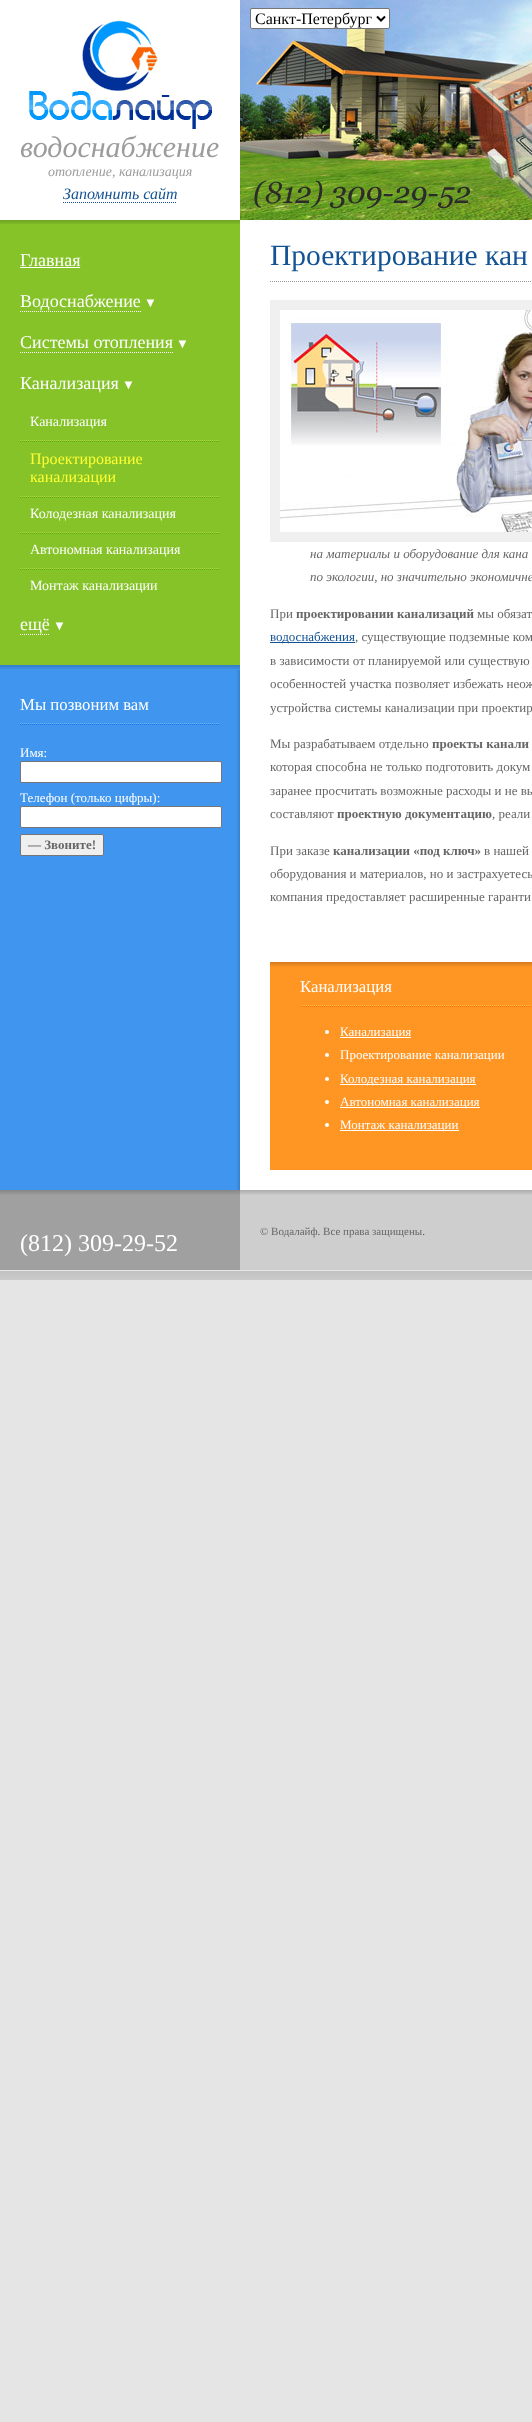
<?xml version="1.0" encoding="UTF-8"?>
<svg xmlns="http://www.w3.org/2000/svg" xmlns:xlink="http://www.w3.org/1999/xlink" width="532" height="2422">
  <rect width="100%" height="100%" fill="#e5e5e5" />
  <rect x="240" y="220" width="292" height="970" fill="#ffffff" />
  <image x="0" y="670" width="240" height="520" xlink:href="image1.png" />
  <rect width="240" height="220" fill="#ffffff" />
  <image x="29" y="20" width="183" height="109" xlink:href="image2.png" />
  <image x="240" y="0" width="292" height="220" xlink:href="image7.png" />
  <rect x="250.5" y="8.5" width="139" height="20" rx="1.5" fill="#ffffff" stroke="#767676" />
  <path d="M 377 16.5 l 4 4 l 4 -4" fill="none" stroke="#000000" stroke-width="2" />
  <path d="M 63 202.5 h 114" fill="none" stroke="#135293" stroke-dasharray="1 1" />
  <rect y="224" width="240" height="441" fill="#85c329" />
  <image x="0" y="220" width="240" height="4" xlink:href="image3.png" />
  <rect x="20" y="267" width="60" height="1" fill="#ffffff" />
  <path d="M 20 311.5 h 121" fill="none" stroke="#ffffff" stroke-dasharray="1 1" />
  <path d="M 20 352.5 h 153" fill="none" stroke="#ffffff" stroke-dasharray="1 1" />
  <image x="20" y="440" width="199" height="2" xlink:href="image4.png" />
  <image x="20" y="496" width="199" height="2" xlink:href="image4.png" />
  <image x="20" y="532" width="199" height="2" xlink:href="image4.png" />
  <image x="20" y="568" width="199" height="2" xlink:href="image4.png" />
  <path d="M 20 634.5 h 30" fill="none" stroke="#ffffff" stroke-dasharray="1 1" />
  <image x="0" y="665" width="240" height="5" xlink:href="image5.png" />
  <image x="20" y="723" width="199" height="2" xlink:href="image6.png" />
  <rect x="20.5" y="761.5" width="201" height="21" rx="1.5" fill="#ffffff" stroke="#767676" />
  <rect x="20.5" y="806.5" width="201" height="21" rx="1.5" fill="#ffffff" stroke="#767676" />
  <rect x="20.5" y="834.5" width="83" height="21" rx="1.5" fill="#efefef" stroke="#767676" />
  <image x="270" y="281" width="261" height="1" xlink:href="image8.png" />
  <rect x="270" y="300" width="262" height="242" fill="#f0f0f0" />
  <image x="280" y="310" width="252" height="222" xlink:href="image9.png" />
  <rect x="270" y="642" width="85" height="1" fill="#135293" />
  <rect x="270" y="967" width="262" height="203" fill="#ff9523" />
  <image x="270" y="962" width="262" height="5" xlink:href="image10.png" />
  <image x="300" y="1005" width="231" height="2" xlink:href="image11.png" />
  <circle cx="327" cy="1032" r="2" fill="#ffffff" />
  <rect x="340" y="1037" width="71" height="1" fill="#ffffff" />
  <circle cx="327" cy="1055" r="2" fill="#ffffff" />
  <circle cx="327" cy="1079" r="2" fill="#ffffff" />
  <rect x="340" y="1084" width="136" height="1" fill="#ffffff" />
  <circle cx="327" cy="1102" r="2" fill="#ffffff" />
  <rect x="340" y="1107" width="140" height="1" fill="#ffffff" />
  <circle cx="327" cy="1125" r="2" fill="#ffffff" />
  <rect x="340" y="1130" width="119" height="1" fill="#ffffff" />
  <image x="0" y="1190" width="532" height="90" xlink:href="image12.png" />
  <image x="0" y="1190" width="240" height="80" xlink:href="image13.png" />
  <text x="255" y="24" style="font-family: Liberation Serif; font-size: 16px; fill: #000000">Санкт-Петербург</text>
  <text x="20" y="157" style="font-family: Liberation Serif; font-size: 30px; font-style: italic; fill: #9c9c9c">водоснабжение</text>
  <text x="48" y="176" style="font-family: Liberation Serif; font-size: 14px; font-style: italic; fill: #9c9c9c">отопление, канализация</text>
  <text x="63" y="199" style="font-family: Liberation Serif; font-size: 16px; font-style: italic; fill: #135293">Запомнить сайт</text>
  <text x="20" y="266" style="font-family: Liberation Serif; font-size: 18px; fill: #ffffff">Главная</text>
  <text x="20" y="307" style="font-family: Liberation Serif; font-size: 18px; fill: #ffffff">Водоснабжение</text>
  <text x="144" y="307" style="font-family: Liberation Serif; font-size: 13px; fill: #ffffff">▼</text>
  <text x="20" y="348" style="font-family: Liberation Serif; font-size: 18px; fill: #ffffff">Системы отопления</text>
  <text x="176" y="348" style="font-family: Liberation Serif; font-size: 13px; fill: #ffffff">▼</text>
  <text x="20" y="389" style="font-family: Liberation Serif; font-size: 18px; fill: #ffffff">Канализация</text>
  <text x="122" y="389" style="font-family: Liberation Serif; font-size: 13px; fill: #ffffff">▼</text>
  <text x="30" y="426" style="font-family: Liberation Serif; font-size: 14px; fill: #ffffff">Канализация</text>
  <text x="30" y="464" style="font-family: Liberation Serif; font-size: 16px; fill: #ffff33">Проектирование</text>
  <text x="30" y="482" style="font-family: Liberation Serif; font-size: 16px; fill: #ffff33">канализации</text>
  <text x="30" y="518" style="font-family: Liberation Serif; font-size: 14px; fill: #ffffff">Колодезная канализация</text>
  <text x="30" y="554" style="font-family: Liberation Serif; font-size: 14px; fill: #ffffff">Автономная канализация</text>
  <text x="30" y="590" style="font-family: Liberation Serif; font-size: 14px; fill: #ffffff">Монтаж канализации</text>
  <text x="20" y="630" style="font-family: Liberation Serif; font-size: 18px; fill: #ffffff">ещё</text>
  <text x="53" y="630" style="font-family: Liberation Serif; font-size: 13px; fill: #ffffff">▼</text>
  <text x="20" y="710" style="font-family: Liberation Serif; font-size: 16.75px; fill: #ffffff">Мы позвоним вам</text>
  <text x="20" y="757" style="font-family: Liberation Serif; font-size: 13px; fill: #ffffff">Имя:</text>
  <text x="20" y="802" style="font-family: Liberation Serif; font-size: 13px; fill: #ffffff">Телефон (только цифры):</text>
  <text x="28" y="849" style="font-family: Liberation Serif; font-size: 13px; font-weight: bold; fill: #666666">— Звоните!</text>
  <text x="270" y="265" style="font-family: Liberation Serif; font-size: 29.5px; fill: #135293">Проектирование кан</text>
  <text x="310" y="558" style="font-family: Liberation Serif; font-size: 13px; font-style: italic; fill: #666666">на материалы и оборудование для кана</text>
  <text x="310" y="581" style="font-family: Liberation Serif; font-size: 13px; font-style: italic; fill: #666666">по экологии, но значительно экономичне</text>
  <text x="270" y="618" style="font-family: Liberation Serif; font-size: 13px; fill: #666666">При</text>
  <text x="296" y="618" style="font-family: Liberation Serif; font-size: 13px; font-weight: bold; fill: #666666">проектировании канализаций</text>
  <text x="477" y="618" style="font-family: Liberation Serif; font-size: 13px; fill: #666666">мы обязат</text>
  <text x="270" y="641" style="font-family: Liberation Serif; font-size: 13px; fill: #135293">водоснабжения</text>
  <text x="355" y="641" style="font-family: Liberation Serif; font-size: 13px; fill: #666666">, существующие подземные ком</text>
  <text x="270" y="665" style="font-family: Liberation Serif; font-size: 13px; fill: #666666">в зависимости от планируемой или существую</text>
  <text x="270" y="688" style="font-family: Liberation Serif; font-size: 13px; fill: #666666">особенностей участка позволяет избежать неож</text>
  <text x="270" y="712" style="font-family: Liberation Serif; font-size: 13px; fill: #666666">устройства системы канализации при проектир</text>
  <text x="270" y="748" style="font-family: Liberation Serif; font-size: 13px; fill: #666666">Мы разрабатываем отдельно</text>
  <text x="432" y="748" style="font-family: Liberation Serif; font-size: 13px; font-weight: bold; fill: #666666">проекты канали</text>
  <text x="270" y="771" style="font-family: Liberation Serif; font-size: 13px; fill: #666666">которая способна не только подготовить докум</text>
  <text x="270" y="795" style="font-family: Liberation Serif; font-size: 13px; fill: #666666">заранее просчитать возможные расходы и не вы</text>
  <text x="270" y="818" style="font-family: Liberation Serif; font-size: 13px; fill: #666666">составляют</text>
  <text x="337" y="818" style="font-family: Liberation Serif; font-size: 13px; font-weight: bold; fill: #666666">проектную документацию</text>
  <text x="492" y="818" style="font-family: Liberation Serif; font-size: 13px; fill: #666666">, реали</text>
  <text x="270" y="855" style="font-family: Liberation Serif; font-size: 13px; fill: #666666">При заказе</text>
  <text x="333" y="855" style="font-family: Liberation Serif; font-size: 13px; font-weight: bold; fill: #666666">канализации «под ключ»</text>
  <text x="484" y="855" style="font-family: Liberation Serif; font-size: 13px; fill: #666666">в нашей</text>
  <text x="270" y="878" style="font-family: Liberation Serif; font-size: 13px; fill: #666666">оборудования и материалов, но и застрахуетесь</text>
  <text x="270" y="901" style="font-family: Liberation Serif; font-size: 13px; fill: #666666">компания предоставляет расширенные гаранти</text>
  <text x="300" y="992" style="font-family: Liberation Serif; font-size: 16.75px; fill: #ffffff">Канализация</text>
  <text x="340" y="1036" style="font-family: Liberation Serif; font-size: 13px; fill: #ffffff">Канализация</text>
  <text x="340" y="1059" style="font-family: Liberation Serif; font-size: 13px; fill: #ffffff">Проектирование канализации</text>
  <text x="340" y="1083" style="font-family: Liberation Serif; font-size: 13px; fill: #ffffff">Колодезная канализация</text>
  <text x="340" y="1106" style="font-family: Liberation Serif; font-size: 13px; fill: #ffffff">Автономная канализация</text>
  <text x="340" y="1129" style="font-family: Liberation Serif; font-size: 13px; fill: #ffffff">Монтаж канализации</text>
  <text x="260" y="1235" style="font-family: Liberation Serif; font-size: 11px; fill: #666666">© Водалайф. Все права защищены.</text>
  <text x="20" y="1251" style="font-family: Liberation Serif; font-size: 24px; fill: #ffffff">(812) 309-29-52</text>
</svg>
